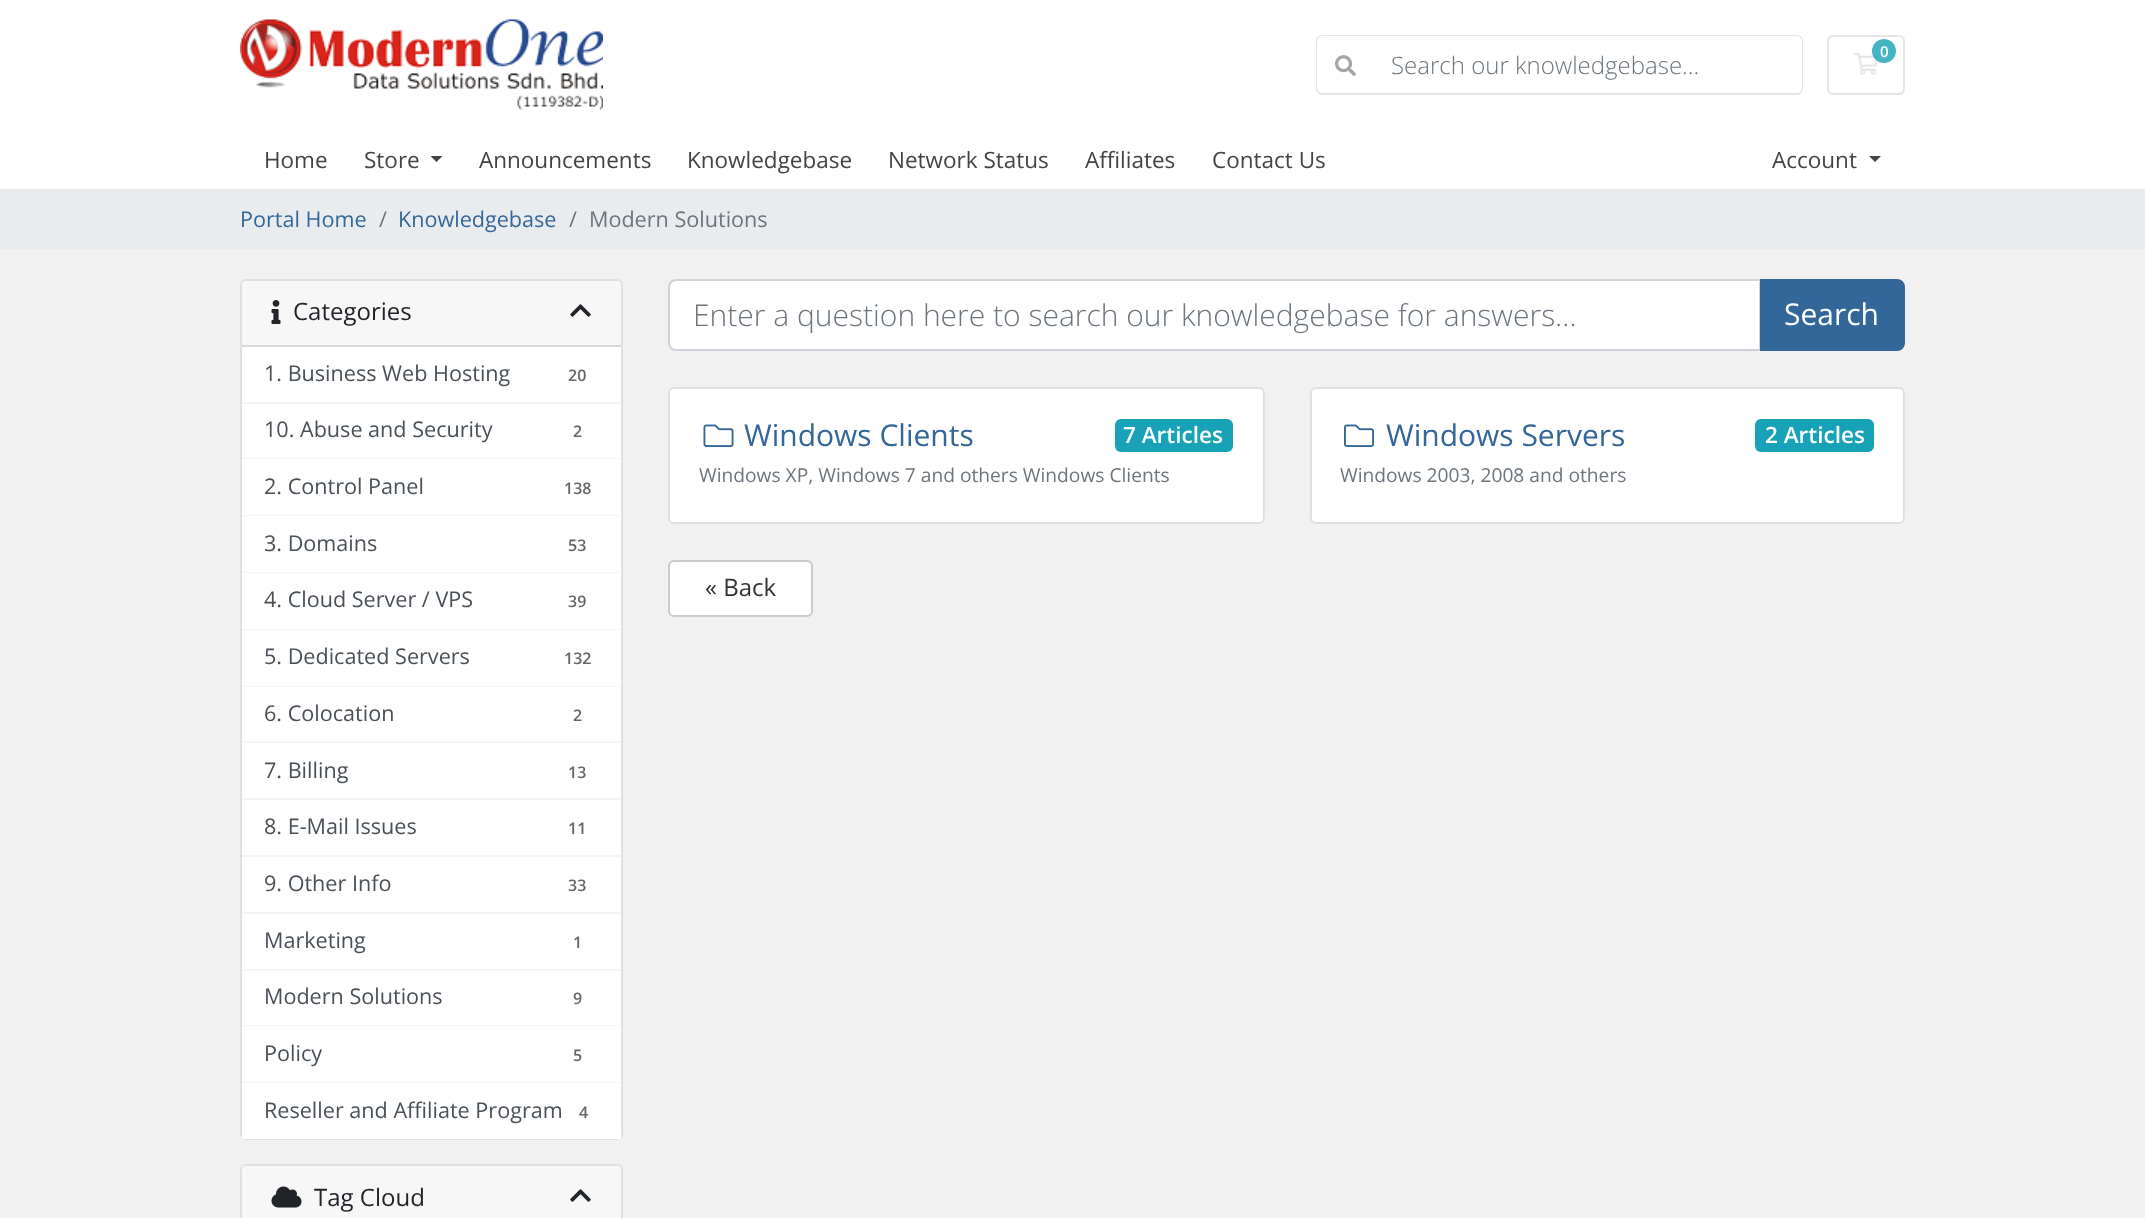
<?xml version="1.0" encoding="UTF-8"?>
<svg xmlns="http://www.w3.org/2000/svg" xmlns:xlink="http://www.w3.org/1999/xlink" width="2145" height="1218">
  <rect width="100%" height="100%" fill="#f1f1f1" />
  <rect width="2145" height="189" fill="#ffffff" />
  <image x="240" y="19" width="363" height="91" xlink:href="image1.png" />
  <rect x="1828" y="36" width="76" height="58" rx="5" fill="none" stroke="#e5e5e5" stroke-width="2" />
  <image x="1854" y="53" width="25" height="22" xlink:href="image2.png" />
  <circle cx="1884" cy="51" r="12" fill="#17a2b8" fill-opacity="0.8" />
  <rect x="1317" y="36" width="485" height="58" rx="5" fill="none" stroke="#e5e5e5" stroke-width="2" />
  <path d="M 1373 36 h 423 c 3.5 0 6 2.5 6 6 v 45 c 0 3.5 -2.5 6 -6 6 h -423 z" fill="#ffffff" />
  <path d="M 1323 36 h 51 v 57 h -51 c -3.5 0 -6 -2.5 -6 -6 v -45 c 0 -3.5 2.5 -6 6 -6 z" fill="#ffffff" />
  <image x="1335" y="55" width="21" height="22" xlink:href="image3.png" />
  <path d="M 430.5 156 h 12 l -6 6 z" fill="#444444" />
  <path d="M 1869 156 h 12 l -6 6 z" fill="#444444" />
  <rect y="189" width="2145" height="60" fill="#e9ecef" />
  <rect x="240" y="279" width="383" height="861" rx="6" fill="#ffffff" />
  <rect x="241" y="280" width="381" height="859" rx="5" fill="none" stroke="#000000" stroke-opacity="0.12" stroke-width="2" />
  <path d="M 247 281 h 369 c 3 0 5 2 5 5 v 61 h -379 v -61 c 0 -3 2 -5 5 -5 z" fill="#f7f7f7" />
  <rect x="242" y="345" width="379" height="2" fill="#d8d8d8" />
  <image x="271" y="300" width="10" height="24" xlink:href="image4.png" />
  <image x="570" y="304" width="21" height="13" xlink:href="image5.png" />
  <rect x="242" y="402" width="379" height="2" fill="#f5f5f5" />
  <rect x="242" y="458" width="379" height="1" fill="#f5f5f5" />
  <rect x="242" y="515" width="379" height="1" fill="#f5f5f5" />
  <rect x="242" y="572" width="379" height="1" fill="#f5f5f5" />
  <rect x="242" y="629" width="379" height="1" fill="#f5f5f5" />
  <rect x="242" y="686" width="379" height="1" fill="#f5f5f5" />
  <rect x="242" y="741" width="379" height="2" fill="#f5f5f5" />
  <rect x="242" y="798" width="379" height="2" fill="#f5f5f5" />
  <rect x="242" y="855" width="379" height="2" fill="#f5f5f5" />
  <rect x="242" y="912" width="379" height="2" fill="#f5f5f5" />
  <rect x="242" y="969" width="379" height="2" fill="#f5f5f5" />
  <rect x="242" y="1025" width="379" height="1" fill="#f5f5f5" />
  <rect x="242" y="1082" width="379" height="1" fill="#f5f5f5" />
  <rect x="242" y="1135" width="379" height="4" fill="#ffffff" />
  <rect x="240" y="1164" width="383" height="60" rx="6" fill="#ffffff" />
  <rect x="241" y="1165" width="381" height="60" rx="5" fill="none" stroke="#000000" stroke-opacity="0.12" stroke-width="2" />
  <path d="M 247 1166 h 369 c 3 0 5 2 5 5 v 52 h -379 v -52 c 0 -3 2 -5 5 -5 z" fill="#f7f7f7" />
  <image x="271" y="1186" width="31" height="22" xlink:href="image6.png" />
  <image x="570" y="1189" width="21" height="13" xlink:href="image5.png" />
  <path d="M 676 280 h 1084 v 70 h -1084 c -4 0 -7 -3 -7 -7 v -56 c 0 -4 3 -7 7 -7 z" fill="#ffffff" stroke="#ced4da" stroke-width="2" />
  <path d="M 1761 280 h 136 c 4 0 7 3 7 7 v 56 c 0 4 -3 7 -7 7 h -136 z" fill="#336699" stroke="#336699" stroke-width="2" />
  <rect x="668" y="387" width="597" height="137" rx="6" fill="#ffffff" />
  <rect x="669" y="388" width="595" height="135" rx="5" fill="none" stroke="#000000" stroke-opacity="0.12" stroke-width="2" />
  <image x="703" y="424" width="31" height="23" xlink:href="image7.png" />
  <rect x="1115" y="419" width="118" height="33" rx="6" fill="#17a2b8" />
  <rect x="1310" y="387" width="595" height="137" rx="6" fill="#ffffff" />
  <rect x="1311" y="388" width="593" height="135" rx="5" fill="none" stroke="#000000" stroke-opacity="0.12" stroke-width="2" />
  <image x="1344" y="424" width="30" height="23" xlink:href="image8.png" />
  <rect x="1755" y="419" width="119" height="33" rx="6" fill="#17a2b8" />
  <rect x="669" y="561" width="143" height="55" rx="5" fill="#ffffff" stroke="#cccccc" stroke-width="2" />
  <text x="1880" y="57" style="font-family: Open Sans; font-size: 15px; font-weight: 600; fill: #ffffff">0</text>
  <text x="1391" y="74" style="font-family: Open Sans; font-size: 24px; font-weight: 300; fill: #6c757d">Search our knowledgebase...</text>
  <text x="264" y="168" style="font-family: Open Sans; font-size: 22.5px; fill: #444444">Home</text>
  <text x="364" y="168" style="font-family: Open Sans; font-size: 22.5px; fill: #444444">Store</text>
  <text x="479" y="168" style="font-family: Open Sans; font-size: 22.5px; fill: #444444">Announcements</text>
  <text x="687" y="168" style="font-family: Open Sans; font-size: 22.5px; fill: #444444">Knowledgebase</text>
  <text x="888" y="168" style="font-family: Open Sans; font-size: 22.5px; fill: #444444">Network Status</text>
  <text x="1085" y="168" style="font-family: Open Sans; font-size: 22.5px; fill: #444444">Affiliates</text>
  <text x="1212" y="168" style="font-family: Open Sans; font-size: 22.5px; fill: #444444">Contact Us</text>
  <text x="1772" y="168" style="font-family: Open Sans; font-size: 22.5px; fill: #444444">Account</text>
  <text x="240" y="227" style="font-family: Open Sans; font-size: 21.6px; fill: #336699">Portal Home</text>
  <text x="379" y="227" style="font-family: Open Sans; font-size: 21.6px; fill: #6c757d">/</text>
  <text x="398" y="227" style="font-family: Open Sans; font-size: 21.6px; fill: #336699">Knowledgebase</text>
  <text x="569" y="227" style="font-family: Open Sans; font-size: 21.6px; fill: #6c757d">/</text>
  <text x="589" y="227" style="font-family: Open Sans; font-size: 21.6px; fill: #6c757d">Modern Solutions</text>
  <text x="293" y="320" style="font-family: Open Sans; font-size: 24px; fill: #212529">Categories</text>
  <text x="264" y="381" style="font-family: Open Sans; font-size: 21.6px; fill: #495057">1. Business Web Hosting</text>
  <text x="568" y="381" style="font-family: Open Sans; font-size: 16px; font-weight: 600; fill: #666666">20</text>
  <text x="264" y="437" style="font-family: Open Sans; font-size: 21.6px; fill: #495057">10. Abuse and Security</text>
  <text x="573" y="437" style="font-family: Open Sans; font-size: 16px; font-weight: 600; fill: #666666">2</text>
  <text x="264" y="494" style="font-family: Open Sans; font-size: 21.6px; fill: #495057">2. Control Panel</text>
  <text x="564" y="494" style="font-family: Open Sans; font-size: 16px; font-weight: 600; fill: #666666">138</text>
  <text x="264" y="551" style="font-family: Open Sans; font-size: 21.6px; fill: #495057">3. Domains</text>
  <text x="568" y="551" style="font-family: Open Sans; font-size: 16px; font-weight: 600; fill: #666666">53</text>
  <text x="264" y="607" style="font-family: Open Sans; font-size: 21.6px; fill: #495057">4. Cloud Server / VPS</text>
  <text x="568" y="607" style="font-family: Open Sans; font-size: 16px; font-weight: 600; fill: #666666">39</text>
  <text x="264" y="664" style="font-family: Open Sans; font-size: 21.6px; fill: #495057">5. Dedicated Servers</text>
  <text x="564" y="664" style="font-family: Open Sans; font-size: 16px; font-weight: 600; fill: #666666">132</text>
  <text x="264" y="721" style="font-family: Open Sans; font-size: 21.6px; fill: #495057">6. Colocation</text>
  <text x="573" y="721" style="font-family: Open Sans; font-size: 16px; font-weight: 600; fill: #666666">2</text>
  <text x="264" y="778" style="font-family: Open Sans; font-size: 21.6px; fill: #495057">7. Billing</text>
  <text x="568" y="778" style="font-family: Open Sans; font-size: 16px; font-weight: 600; fill: #666666">13</text>
  <text x="264" y="834" style="font-family: Open Sans; font-size: 21.6px; fill: #495057">8. E-Mail Issues</text>
  <text x="568" y="834" style="font-family: Open Sans; font-size: 16px; font-weight: 600; fill: #666666">11</text>
  <text x="264" y="891" style="font-family: Open Sans; font-size: 21.6px; fill: #495057">9. Other Info</text>
  <text x="568" y="891" style="font-family: Open Sans; font-size: 16px; font-weight: 600; fill: #666666">33</text>
  <text x="264" y="948" style="font-family: Open Sans; font-size: 21.6px; fill: #495057">Marketing</text>
  <text x="573" y="948" style="font-family: Open Sans; font-size: 16px; font-weight: 600; fill: #666666">1</text>
  <text x="264" y="1004" style="font-family: Open Sans; font-size: 21.6px; fill: #495057">Modern Solutions</text>
  <text x="573" y="1004" style="font-family: Open Sans; font-size: 16px; font-weight: 600; fill: #666666">9</text>
  <text x="264" y="1061" style="font-family: Open Sans; font-size: 21.6px; fill: #495057">Policy</text>
  <text x="573" y="1061" style="font-family: Open Sans; font-size: 16px; font-weight: 600; fill: #666666">5</text>
  <text x="264" y="1118" style="font-family: Open Sans; font-size: 21.6px; fill: #495057">Reseller and Affiliate Program</text>
  <text x="579" y="1118" style="font-family: Open Sans; font-size: 16px; font-weight: 600; fill: #666666">4</text>
  <text x="314" y="1206" style="font-family: Open Sans; font-size: 24px; fill: #212529">Tag Cloud</text>
  <text x="693" y="326" style="font-family: Open Sans; font-size: 30px; font-weight: 300; fill: #6c757d">Enter a question here to search our knowledgebase for answers...</text>
  <text x="1784" y="325" style="font-family: Open Sans; font-size: 30px; fill: #ffffff">Search</text>
  <text x="744" y="446" style="font-family: Open Sans; font-size: 30px; fill: #336699">Windows Clients</text>
  <text x="1123" y="443" style="font-family: Open Sans; font-size: 22.5px; font-weight: 600; fill: #ffffff">7 Articles</text>
  <text x="699" y="482" style="font-family: Open Sans; font-size: 19.2px; fill: #6c757d">Windows XP, Windows 7 and others Windows Clients</text>
  <text x="1386" y="446" style="font-family: Open Sans; font-size: 30px; fill: #336699">Windows Servers</text>
  <text x="1765" y="443" style="font-family: Open Sans; font-size: 22.5px; font-weight: 600; fill: #ffffff">2 Articles</text>
  <text x="1340" y="482" style="font-family: Open Sans; font-size: 19.2px; fill: #6c757d">Windows 2003, 2008 and others</text>
  <text x="705" y="596" style="font-family: Open Sans; font-size: 24px; fill: #333333">« Back</text>
</svg>
